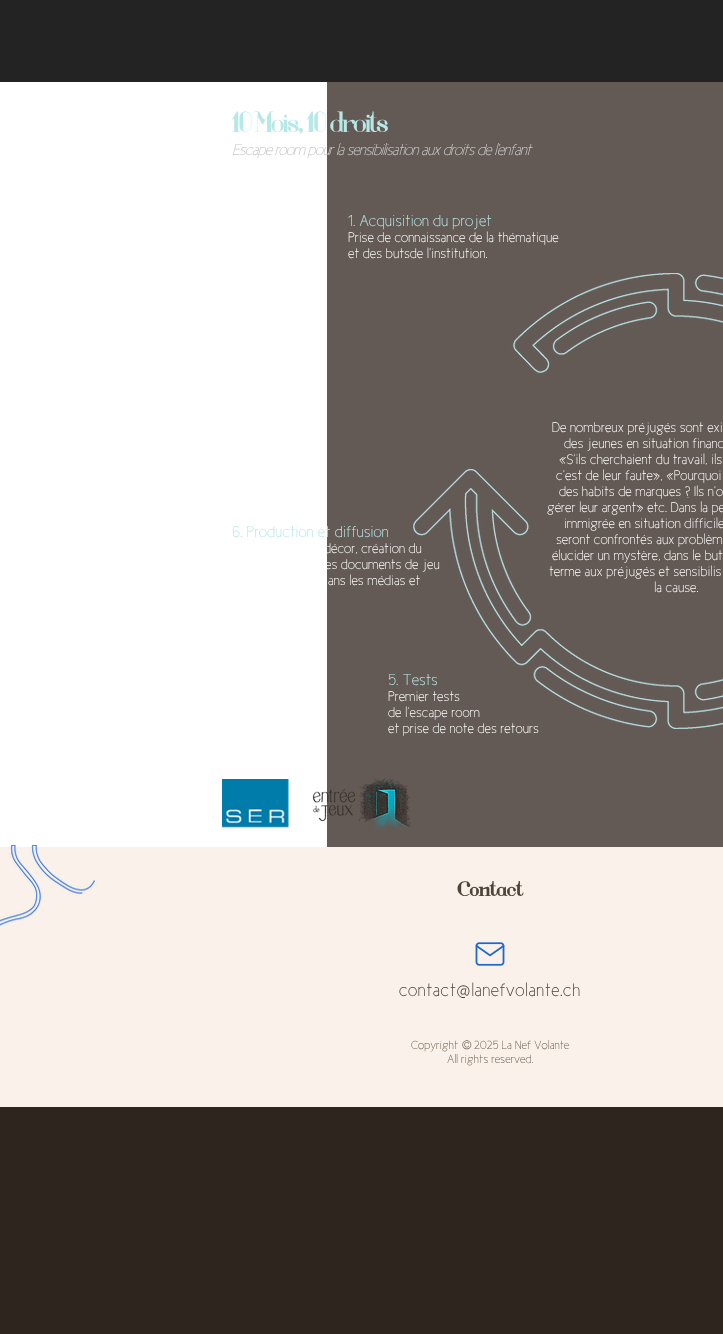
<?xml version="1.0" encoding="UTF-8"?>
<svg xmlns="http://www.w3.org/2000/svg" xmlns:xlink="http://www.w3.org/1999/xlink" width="723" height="1334">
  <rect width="100%" height="100%" fill="#2e251f" />
  <rect width="723" height="82" fill="#242323" />
  <rect y="82" width="327" height="765" fill="#ffffff" />
  <rect x="327" y="82" width="396" height="765" fill="#635a56" />
  <image x="413" y="273" width="310" height="456" xlink:href="image1.png" />
  <image x="222" y="779" width="67" height="49" xlink:href="image2.png" />
  <image x="312" y="778" width="99" height="52" xlink:href="image3.png" />
  <rect y="847" width="723" height="260" fill="#f9f1ea" />
  <image x="0" y="845" width="97" height="81" xlink:href="image4.png" />
  <image x="475" y="942" width="30" height="24" xlink:href="image5.png" />
  <text x="232" y="132" style="font-family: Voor; font-size: 30px; letter-spacing: -1.5px; fill: #b7e8e8">10 Mois, 10 droits</text>
  <text x="232" y="155" style="font-family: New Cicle; font-size: 16px; font-style: italic; letter-spacing: -0.8px; fill: #c7c7c7">Escape room pour la sensibilisation aux droits de l'enfant</text>
  <text x="348" y="226" style="font-family: New Cicle; font-size: 16px; fill: #b7e8e8">1. Acquisition du projet</text>
  <text x="348" y="242" style="font-family: New Cicle; font-size: 14px; fill: #fffffe">Prise de connaissance de la thématique</text>
  <text x="348" y="258" style="font-family: New Cicle; font-size: 14px; fill: #fffffe">et des butsde l’institution.</text>
  <text x="232" y="537" style="font-family: New Cicle; font-size: 16px; fill: #b7e8e8">6. Production et diffusion</text>
  <text x="324" y="553" style="font-family: New Cicle; font-size: 14px; fill: #fffffe">décor, création du</text>
  <text x="325" y="569" style="font-family: New Cicle; font-size: 14px; fill: #fffffe">es documents de jeu</text>
  <text x="328" y="585" style="font-family: New Cicle; font-size: 14px; fill: #fffffe">ans les médias et</text>
  <text x="552" y="432" style="font-family: New Cicle; font-size: 14px; fill: #fffffe">De nombreux préjugés sont exi</text>
  <text x="564" y="448" style="font-family: New Cicle; font-size: 14px; fill: #fffffe">des jeunes en situation financ</text>
  <text x="559" y="464" style="font-family: New Cicle; font-size: 14px; fill: #fffffe">«S’ils cherchaient du travail, ils</text>
  <text x="556" y="480" style="font-family: New Cicle; font-size: 14px; fill: #fffffe">c’est de leur faute», «Pourquoi</text>
  <text x="559" y="496" style="font-family: New Cicle; font-size: 14px; fill: #fffffe">des habits de marques ? Ils n’o</text>
  <text x="547" y="512" style="font-family: New Cicle; font-size: 14px; fill: #fffffe">gérer leur argent» etc. Dans la pe</text>
  <text x="564" y="528" style="font-family: New Cicle; font-size: 14px; fill: #fffffe">immigrée en situation difficile</text>
  <text x="556" y="544" style="font-family: New Cicle; font-size: 14px; fill: #fffffe">seront confrontés aux problèm</text>
  <text x="552" y="560" style="font-family: New Cicle; font-size: 14px; fill: #fffffe">élucider un mystère, dans le but</text>
  <text x="549" y="576" style="font-family: New Cicle; font-size: 14px; fill: #fffffe">terme aux préjugés et sensibilis</text>
  <text x="654" y="592" style="font-family: New Cicle; font-size: 14px; fill: #fffffe">la cause.</text>
  <text x="388" y="685" style="font-family: New Cicle; font-size: 16px; fill: #b7e8e8">5. Tests</text>
  <text x="388" y="701" style="font-family: New Cicle; font-size: 14px; fill: #fffffe">Premier tests</text>
  <text x="388" y="717" style="font-family: New Cicle; font-size: 14px; fill: #fffffe">de l’escape room</text>
  <text x="388" y="733" style="font-family: New Cicle; font-size: 14px; fill: #fffffe">et prise de note des retours</text>
  <text x="457" y="896" style="font-family: Voor; font-size: 21px; font-weight: bold; letter-spacing: 0.5px; fill: #4d4539">Contact</text>
  <text x="399" y="996" style="font-family: New Cicle; font-size: 18px; letter-spacing: 0.5px; fill: #4d4539">contact@lanefvolante.ch</text>
  <text x="411" y="1049" style="font-family: New Cicle; font-size: 12px; fill: #736457">Copyright</text>
  <text x="462" y="1049" style="font-family: 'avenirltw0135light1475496'; font-size: 12px; font-weight: 300; fill: #736457">©</text>
  <text x="474" y="1049" style="font-family: New Cicle; font-size: 12px; fill: #736457">2025 La Nef Volante</text>
  <text x="447" y="1063" style="font-family: New Cicle; font-size: 12px; fill: #736457">All rights reserved.</text>
</svg>
